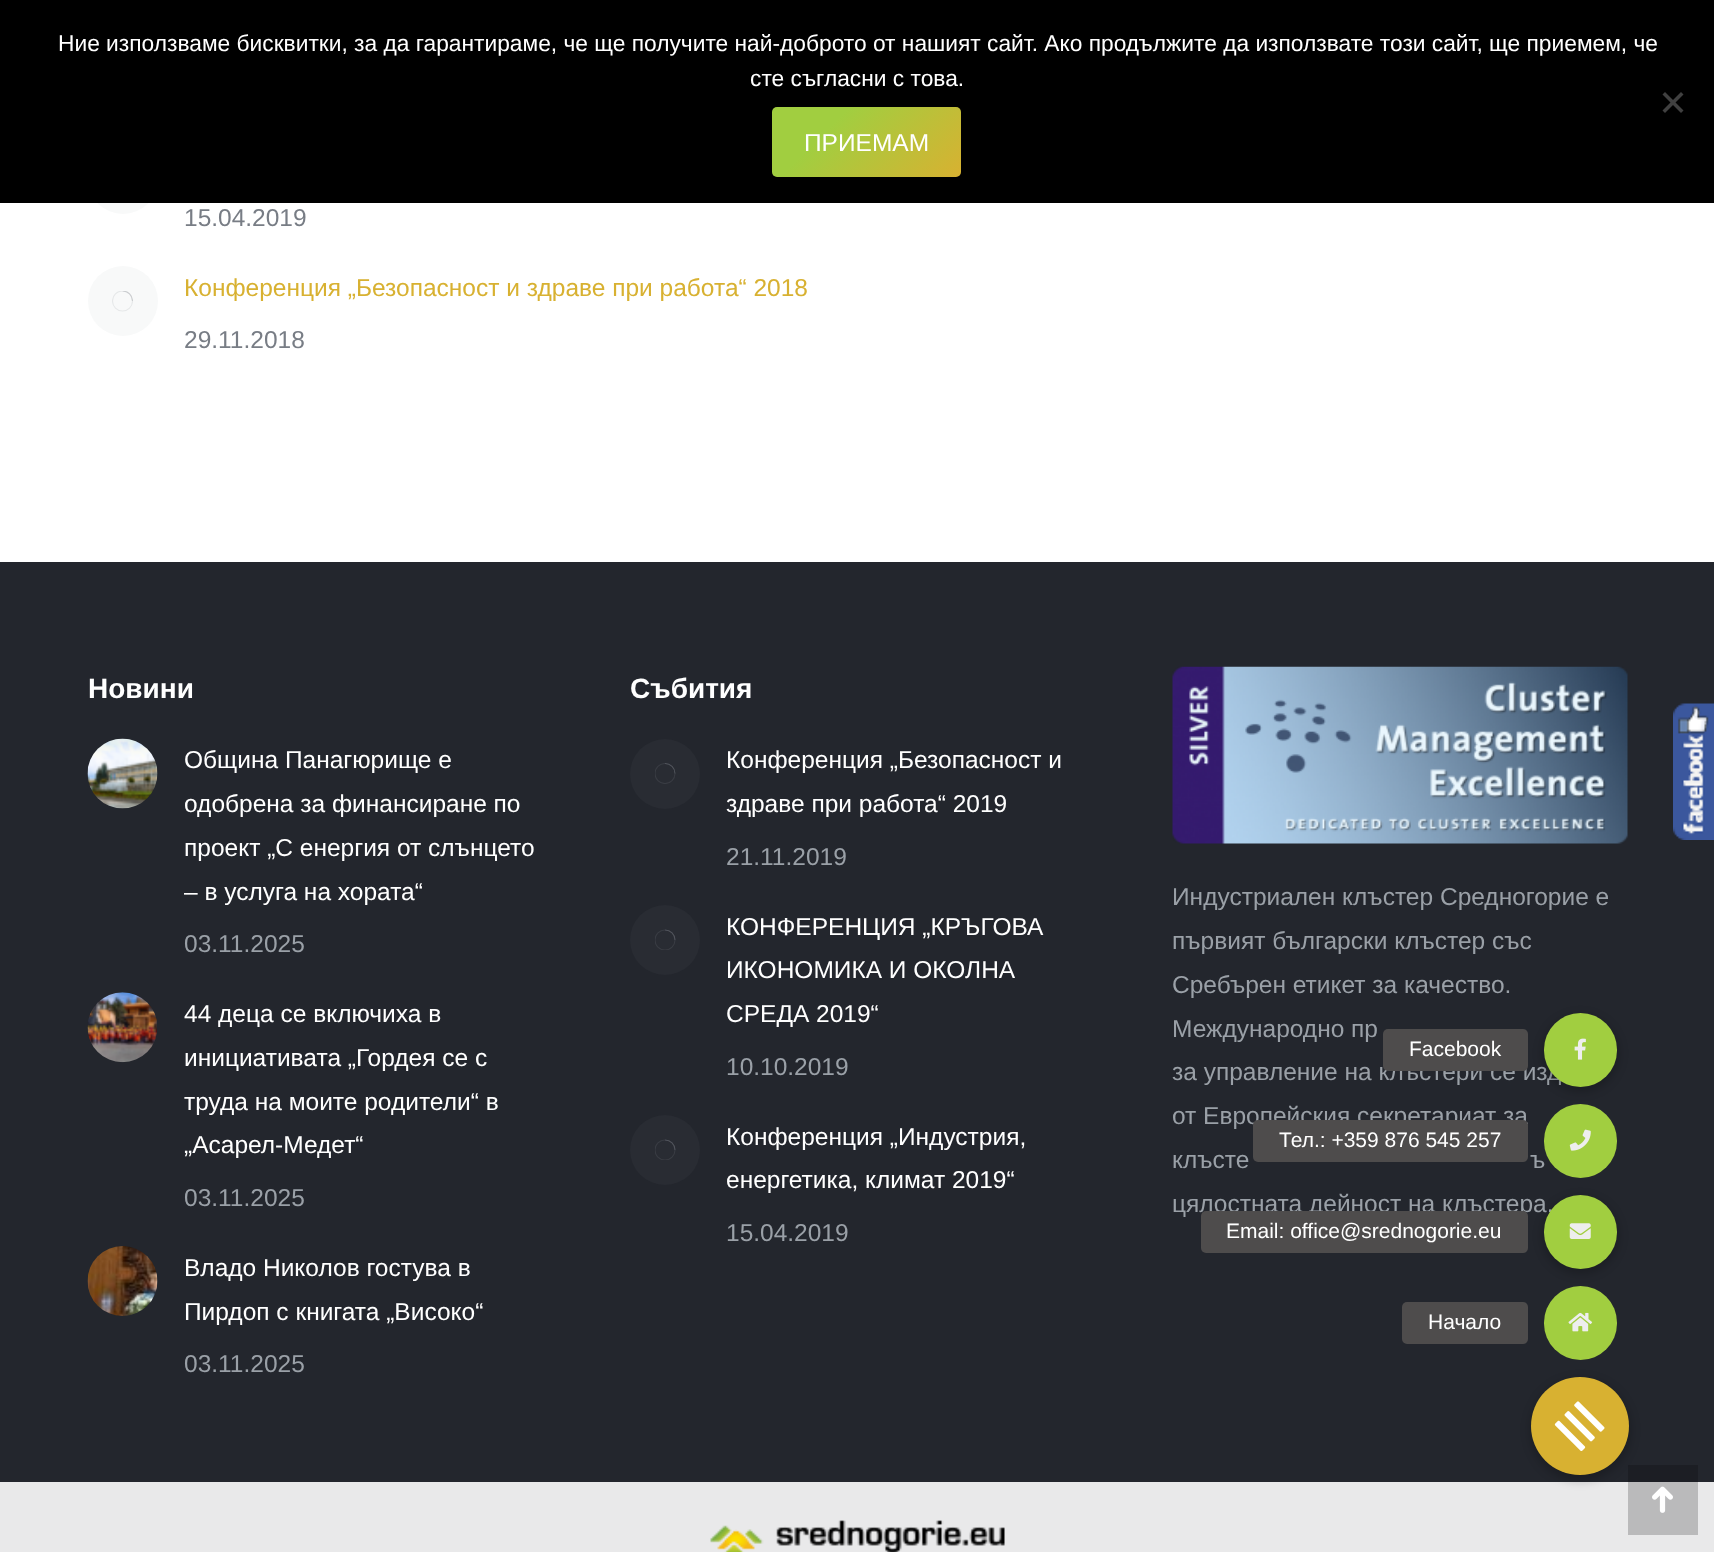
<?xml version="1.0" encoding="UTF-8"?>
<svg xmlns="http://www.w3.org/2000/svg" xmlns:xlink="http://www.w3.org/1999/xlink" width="1714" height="1552">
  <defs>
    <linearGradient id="g1" gradientUnits="userSpaceOnUse" x1="802" y1="77" x2="931" y2="207"><stop offset="0.3" stop-color="#a1ce40" /><stop offset="1" stop-color="#d8b131" /></linearGradient>
    <clipPath id="clip1"><rect x="112" y="291" width="21" height="21" /></clipPath>
    <clipPath id="clip2"><rect x="655" y="763" width="21" height="21" /></clipPath>
    <clipPath id="clip3"><rect x="655" y="929" width="21" height="21" /></clipPath>
    <clipPath id="clip4"><rect x="655" y="1139" width="21" height="21" /></clipPath>
  </defs>
  <rect width="100%" height="100%" fill="#ffffff" />
  <circle cx="123" cy="179" r="35" fill="#f8f9f9" />
  <rect width="1714" height="203" fill="#000000" />
  <path d="M 1681 92 l 2.5 2.5 l -18.5 18.5 l -2.5 -2.5 z" fill="#404040" />
  <path d="M 1662.5 94.5 l 2.5 -2.5 l 18.5 18.5 l -2.5 2.5 z" fill="#404040" />
  <rect x="772" y="107" width="189" height="70" rx="5" fill="url(#g1)" />
  <circle cx="123" cy="301" r="35" fill="#f8f9f9" />
  <g clip-path="url(#clip1)">
    <circle cx="122.5" cy="301" r="10" fill="none" stroke="#e6e8e9" stroke-width="1.1" />
    <path d="M 132.5 301 c 0 -5.5 -4.5 -10 -10 -10" fill="none" stroke="#787d85" stroke-opacity="0.25" stroke-width="1.1" />
  </g>
  <rect y="562" width="1714" height="920" fill="#23262d" />
  <rect x="1628" y="1465" width="70" height="17" fill="#1c1e24" />
  <image x="87" y="738" width="71" height="71" xlink:href="image1.png" />
  <image x="87" y="992" width="70" height="71" xlink:href="image2.png" />
  <image x="87" y="1246" width="71" height="70" xlink:href="image3.png" />
  <circle cx="665" cy="774" r="35" fill="#292c33" />
  <g clip-path="url(#clip2)">
    <circle cx="665" cy="773.5" r="10" fill="none" stroke="#393c43" stroke-width="1.1" />
  </g>
  <path d="M 675 773.5 c 0 -5.5 -4.5 -10 -10 -10" fill="none" stroke="#9aa0a7" stroke-opacity="0.25" stroke-width="1.1" />
  <circle cx="665" cy="940" r="35" fill="#292c33" />
  <g clip-path="url(#clip3)">
    <circle cx="665" cy="940" r="10" fill="none" stroke="#393c43" stroke-width="1.1" />
  </g>
  <path d="M 675 940 c 0 -5.5 -4.5 -10 -10 -10" fill="none" stroke="#9aa0a7" stroke-opacity="0.25" stroke-width="1.1" />
  <circle cx="665" cy="1150" r="35" fill="#292c33" />
  <g clip-path="url(#clip4)">
    <circle cx="665" cy="1150" r="10" fill="none" stroke="#393c43" stroke-width="1.1" />
  </g>
  <path d="M 675 1150 c 0 -5.5 -4.5 -10 -10 -10" fill="none" stroke="#9aa0a7" stroke-opacity="0.25" stroke-width="1.1" />
  <image x="1172" y="666" width="456" height="178" xlink:href="image4.png" />
  <rect y="1482" width="1714" height="70" fill="#e9e9ea" />
  <rect x="1628" y="1482" width="70" height="53" fill="#bababb" />
  <image x="710" y="1520" width="295" height="32" xlink:href="image5.png" />
  <image x="1652" y="1486" width="21" height="27" xlink:href="image6.png" />
  <image x="1673" y="703" width="41" height="137" xlink:href="image7.png" />
  <rect x="1544" y="1286" width="73" height="74" rx="36.5" fill="#a1ce40" />
  <rect x="1542" y="1197" width="77" height="77" rx="38.5" fill="#000000" fill-opacity="0.2" filter="blur(5px)" />
  <rect x="1402" y="1302" width="126" height="42" rx="5" fill="#4e4c4c" />
  <image x="1568" y="1312" width="25" height="20" xlink:href="image11.png" />
  <rect x="1530" y="1379" width="101" height="102" rx="50.5" fill="#000000" fill-opacity="0.2" filter="blur(5px)" />
  <circle cx="1580" cy="1426" r="49" fill="#d8b131" />
  <image x="1554" y="1401" width="51" height="50" xlink:href="image12.png" />
  <text x="58" y="51" style="font-family: Liberation Sans; font-size: 22.75px; fill: #ffffff">Ние използваме бисквитки, за да гарантираме, че ще получите най-доброто от нашият сайт. Ако продължите да използвате този сайт, ще приемем, че</text>
  <text x="750" y="86" style="font-family: Liberation Sans; font-size: 22.75px; fill: #ffffff">сте съгласни с това.</text>
  <text x="804" y="151" style="font-family: Liberation Sans; font-size: 24.5px; fill: #ffffff">ПРИЕМАМ</text>
  <text x="184" y="226" style="font-family: Liberation Sans; font-size: 24.5px; fill: #787d85">15.04.2019</text>
  <text x="184" y="296" style="font-family: Liberation Sans; font-size: 24.5px; fill: #d8b131">Конференция „Безопасност и здраве при работа“ 2018</text>
  <text x="184" y="348" style="font-family: Liberation Sans; font-size: 24.5px; fill: #787d85">29.11.2018</text>
  <text x="88" y="698" style="font-family: Liberation Sans; font-size: 28px; font-weight: bold; fill: #ffffff">Новини</text>
  <text x="184" y="768" style="font-family: Liberation Sans; font-size: 24.5px; fill: #ffffff">Община Панагюрище e</text>
  <text x="184" y="812" style="font-family: Liberation Sans; font-size: 24.5px; fill: #ffffff">одобрена за финансиране по</text>
  <text x="184" y="856" style="font-family: Liberation Sans; font-size: 24.5px; fill: #ffffff">проект „С енергия от слънцето</text>
  <text x="184" y="900" style="font-family: Liberation Sans; font-size: 24.5px; fill: #ffffff">– в услуга на хората“</text>
  <text x="184" y="952" style="font-family: Liberation Sans; font-size: 24.5px; fill: #9aa0a7">03.11.2025</text>
  <text x="184" y="1022" style="font-family: Liberation Sans; font-size: 24.5px; fill: #ffffff">44 деца се включиха в</text>
  <text x="184" y="1066" style="font-family: Liberation Sans; font-size: 24.5px; fill: #ffffff">инициативата „Гордея се с</text>
  <text x="184" y="1110" style="font-family: Liberation Sans; font-size: 24.5px; fill: #ffffff">труда на моите родители“ в</text>
  <text x="184" y="1153" style="font-family: Liberation Sans; font-size: 24.5px; fill: #ffffff">„Асарел-Медет“</text>
  <text x="184" y="1206" style="font-family: Liberation Sans; font-size: 24.5px; fill: #9aa0a7">03.11.2025</text>
  <text x="184" y="1276" style="font-family: Liberation Sans; font-size: 24.5px; fill: #ffffff">Владо Николов гостува в</text>
  <text x="184" y="1320" style="font-family: Liberation Sans; font-size: 24.5px; fill: #ffffff">Пирдоп с книгата „Високо“</text>
  <text x="184" y="1372" style="font-family: Liberation Sans; font-size: 24.5px; fill: #9aa0a7">03.11.2025</text>
  <text x="630" y="698" style="font-family: Liberation Sans; font-size: 28px; font-weight: bold; fill: #ffffff">Събития</text>
  <text x="726" y="768" style="font-family: Liberation Sans; font-size: 24.5px; fill: #ffffff">Конференция „Безопасност и</text>
  <text x="726" y="812" style="font-family: Liberation Sans; font-size: 24.5px; fill: #ffffff">здраве при работа“ 2019</text>
  <text x="726" y="865" style="font-family: Liberation Sans; font-size: 24.5px; fill: #9aa0a7">21.11.2019</text>
  <text x="726" y="935" style="font-family: Liberation Sans; font-size: 24.5px; fill: #ffffff">КОНФЕРЕНЦИЯ „КРЪГОВА</text>
  <text x="726" y="978" style="font-family: Liberation Sans; font-size: 24.5px; fill: #ffffff">ИКОНОМИКА И ОКОЛНА</text>
  <text x="726" y="1022" style="font-family: Liberation Sans; font-size: 24.5px; fill: #ffffff">СРЕДА 2019“</text>
  <text x="726" y="1075" style="font-family: Liberation Sans; font-size: 24.5px; fill: #9aa0a7">10.10.2019</text>
  <text x="726" y="1145" style="font-family: Liberation Sans; font-size: 24.5px; fill: #ffffff">Конференция „Индустрия,</text>
  <text x="726" y="1188" style="font-family: Liberation Sans; font-size: 24.5px; fill: #ffffff">енергетика, климат 2019“</text>
  <text x="726" y="1241" style="font-family: Liberation Sans; font-size: 24.5px; fill: #9aa0a7">15.04.2019</text>
  <text x="1172" y="905" style="font-family: Liberation Sans; font-size: 24.5px; fill: #9aa0a7">Индустриален клъстер Средногорие е</text>
  <text x="1172" y="949" style="font-family: Liberation Sans; font-size: 24.5px; fill: #9aa0a7">първият български клъстер със</text>
  <text x="1172" y="993" style="font-family: Liberation Sans; font-size: 24.5px; fill: #9aa0a7">Сребърен етикет за качество.</text>
  <text x="1172" y="1037" style="font-family: Liberation Sans; font-size: 24.5px; fill: #9aa0a7">Международно пр</text>
  <text x="1172" y="1080" style="font-family: Liberation Sans; font-size: 24.5px; fill: #9aa0a7">за управление на клъстери се изд</text>
  <text x="1172" y="1124" style="font-family: Liberation Sans; font-size: 24.5px; fill: #9aa0a7">от Европейския секретариат за</text>
  <text x="1172" y="1168" style="font-family: Liberation Sans; font-size: 24.5px; fill: #9aa0a7">клъсте</text>
  <text x="1530" y="1168" style="font-family: Liberation Sans; font-size: 24.5px; fill: #9aa0a7">ъ</text>
  <text x="1172" y="1212" style="font-family: Liberation Sans; font-size: 24.5px; fill: #9aa0a7">цялостната дейност на клъстера.</text>
  <rect x="1544" y="1104" width="73" height="74" rx="36.5" fill="#a1ce40" />
  <rect x="1542" y="1015" width="77" height="77" rx="38.5" fill="#000000" fill-opacity="0.2" filter="blur(5px)" />
  <rect x="1383" y="1029" width="145" height="42" rx="5" fill="#4e4c4c" />
  <text x="1409" y="1056" style="font-family: Liberation Sans; font-size: 21px; fill: #ffffff">Facebook</text>
  <rect x="1544" y="1013" width="73" height="74" rx="36.5" fill="#a1ce40" />
  <image x="1574" y="1038" width="12" height="22" xlink:href="image8.png" />
  <rect x="1253" y="1120" width="275" height="42" rx="5" fill="#4e4c4c" />
  <text x="1279" y="1147" style="font-family: Liberation Sans; font-size: 21px; fill: #ffffff">Тел.: +359 876 545 257</text>
  <image x="1569" y="1129" width="22" height="22" xlink:href="image9.png" />
  <rect x="1544" y="1195" width="73" height="74" rx="36.5" fill="#a1ce40" />
  <rect x="1201" y="1211" width="327" height="42" rx="5" fill="#4e4c4c" />
  <text x="1226" y="1238" style="font-family: Liberation Sans; font-size: 21px; fill: #ffffff">Email: office@srednogorie.eu</text>
  <image x="1569" y="1223" width="22" height="16" xlink:href="image10.png" />
  <text x="1428" y="1329" style="font-family: Liberation Sans; font-size: 21px; fill: #ffffff">Начало</text>
</svg>
